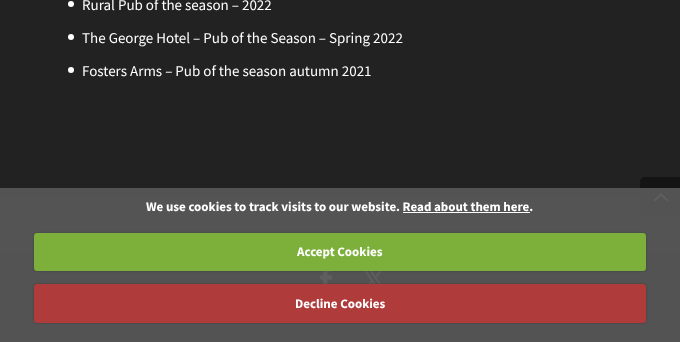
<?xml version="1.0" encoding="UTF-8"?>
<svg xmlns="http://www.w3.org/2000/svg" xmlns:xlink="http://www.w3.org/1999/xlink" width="680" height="342">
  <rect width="100%" height="100%" fill="#222222" />
  <circle cx="71" cy="4" r="3" fill="#ffffff" />
  <circle cx="71" cy="37" r="3" fill="#ffffff" />
  <circle cx="71" cy="70" r="3" fill="#ffffff" />
  <rect y="197" width="680" height="56" fill="#2d2d2d" />
  <rect y="253" width="680" height="89" fill="#171717" />
  <image x="320" y="271" width="13" height="13" xlink:href="image1.png" />
  <image x="364" y="271" width="18" height="13" xlink:href="image2.png" />
  <path d="M 645 177 h 35 v 40 h -35 c -3 0 -5 -2 -5 -5 v -30 c 0 -3 2 -5 5 -5 z" fill="#000000" fill-opacity="0.4" />
  <image x="653" y="193" width="15" height="9" xlink:href="image3.png" />
  <rect y="188" width="680" height="154" fill="#565656" fill-opacity="0.95" />
  <rect x="403" y="212" width="127" height="1" fill="#ffffff" />
  <rect x="34" y="233" width="612" height="38" rx="3" fill="#000000" fill-opacity="0.25" filter="blur(1px)" />
  <rect x="34" y="233" width="612" height="38" rx="3" fill="#7daf3b" />
  <rect x="34" y="284" width="612" height="39" rx="3" fill="#000000" fill-opacity="0.25" filter="blur(1px)" />
  <rect x="34" y="284" width="612" height="39" rx="3" fill="#af3b3b" />
  <text x="82" y="10" style="font-family: Source Sans Pro; font-size: 15px; fill: #ffffff">Rural Pub of the season – 2022</text>
  <text x="82" y="43" style="font-family: Source Sans Pro; font-size: 15px; fill: #ffffff">The George Hotel – Pub of the Season – Spring 2022</text>
  <text x="82" y="76" style="font-family: Source Sans Pro; font-size: 15px; fill: #ffffff">Fosters Arms – Pub of the season autumn 2021</text>
  <text x="146" y="211" style="font-family: Source Sans Pro; font-size: 13px; font-weight: bold; fill: #ffffff">We use cookies to track visits to our website. Read about them here.</text>
  <text x="297" y="256" style="font-family: Source Sans Pro; font-size: 13px; font-weight: bold; fill: #ffffff">Accept Cookies</text>
  <text x="295" y="308" style="font-family: Source Sans Pro; font-size: 13px; font-weight: bold; fill: #ffffff">Decline Cookies</text>
</svg>
